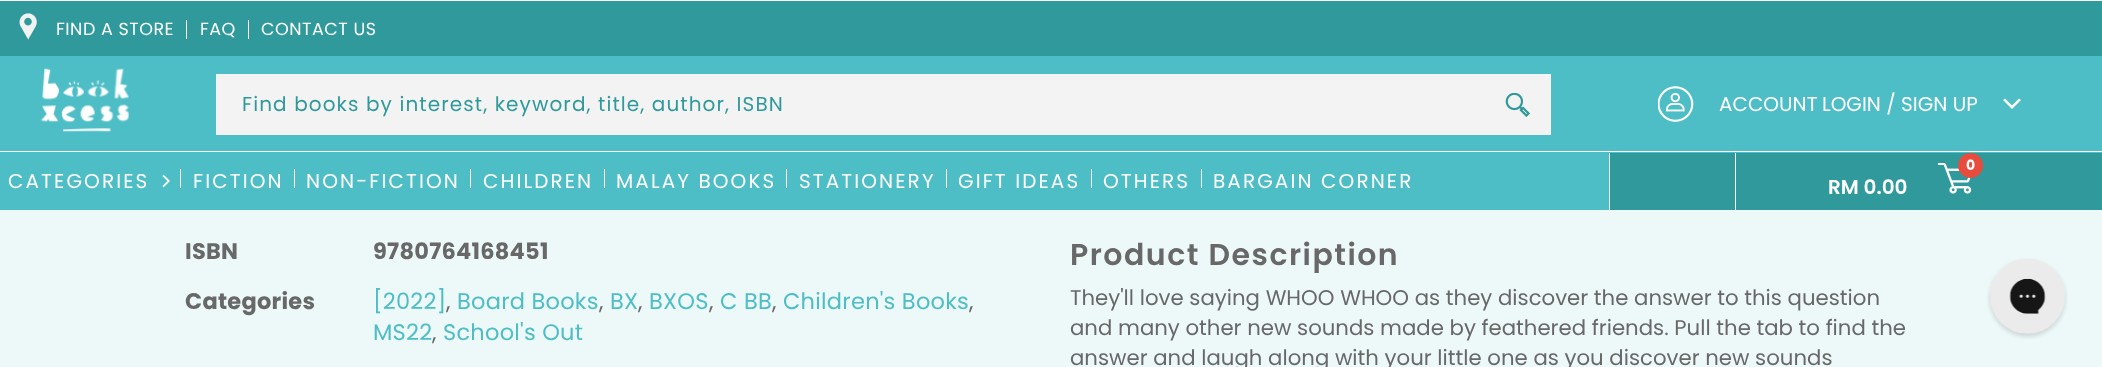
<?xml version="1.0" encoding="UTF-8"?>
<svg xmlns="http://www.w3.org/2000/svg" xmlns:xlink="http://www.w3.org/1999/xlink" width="2102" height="367">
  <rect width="100%" height="100%" fill="#edf8f9" />
  <rect y="56" width="2102" height="97" fill="#4dbdc6" />
  <rect width="2102" height="1" fill="#ffffff" />
  <rect y="151" width="2102" height="1" fill="#ffffff" />
  <rect y="1" width="2102" height="55" fill="#2f999b" />
  <image x="19" y="13" width="18" height="27" xlink:href="image1.png" />
  <rect x="186" y="20" width="1" height="19" fill="#ffffff" />
  <rect x="248" y="20" width="1" height="19" fill="#ffffff" />
  <image x="41" y="68" width="88" height="64" xlink:href="image2.png" />
  <rect x="216" y="74" width="1335" height="61" fill="#f3f3f3" />
  <image x="1505" y="93" width="25" height="24" xlink:href="image3.png" />
  <image x="1658" y="86" width="36" height="36" xlink:href="image4.png" />
  <path d="M 2003 100 l 9 9 l 9 -9 l -2 -1.5 l -7 7 l -7 -7 z" fill="#ffffff" />
  <rect y="153" width="1609" height="57" fill="#4dbdc6" />
  <rect x="1610" y="153" width="492" height="57" fill="#2f999b" />
  <image x="162" y="174" width="8" height="14" xlink:href="image5.png" />
  <rect x="180" y="169" width="1" height="19" fill="#ffffff" />
  <rect x="294" y="169" width="1" height="19" fill="#ffffff" />
  <rect x="470" y="169" width="1" height="19" fill="#ffffff" />
  <rect x="604" y="169" width="1" height="19" fill="#ffffff" />
  <rect x="786" y="169" width="1" height="19" fill="#ffffff" />
  <rect x="946" y="169" width="1" height="19" fill="#ffffff" />
  <rect x="1091" y="169" width="1" height="19" fill="#ffffff" />
  <rect x="1201" y="169" width="1" height="19" fill="#ffffff" />
  <rect x="1609" y="153" width="1" height="57" fill="#ffffff" />
  <rect x="1735" y="153" width="1" height="57" fill="#ffffff" />
  <image x="1938" y="163" width="34" height="31" xlink:href="image6.png" />
  <circle cx="1970.5" cy="165.5" r="12.5" fill="#e74c3c" />
  <image x="1987" y="258" width="81" height="81" xlink:href="image7.png" />
  <text x="56" y="35" style="font-family: Poppins; font-size: 17.5px; letter-spacing: 0.5px; fill: #ffffff">FIND A STORE</text>
  <text x="200" y="35" style="font-family: Poppins; font-size: 17.5px; letter-spacing: 0.5px; fill: #ffffff">FAQ</text>
  <text x="261" y="35" style="font-family: Poppins; font-size: 17.5px; letter-spacing: 0.5px; fill: #ffffff">CONTACT US</text>
  <text x="242" y="111" style="font-family: Poppins; font-size: 20px; letter-spacing: 1.1px; fill: #2f999b">Find books by interest, keyword, title, author, ISBN</text>
  <text x="1719" y="111" style="font-family: Poppins; font-size: 20px; fill: #ffffff">ACCOUNT</text>
  <text x="1822" y="111" style="font-family: Poppins; font-size: 20px; fill: #ffffff">LOGIN / SIGN UP</text>
  <text x="8" y="188" style="font-family: Poppins; font-size: 20px; letter-spacing: 2.1px; fill: #ffffff">CATEGORIES</text>
  <text x="193" y="188" style="font-family: Poppins; font-size: 20px; letter-spacing: 2.1px; fill: #ffffff">FICTION</text>
  <text x="306" y="188" style="font-family: Poppins; font-size: 20px; letter-spacing: 2.1px; fill: #ffffff">NON-FICTION</text>
  <text x="483" y="188" style="font-family: Poppins; font-size: 20px; letter-spacing: 2.1px; fill: #ffffff">CHILDREN</text>
  <text x="616" y="188" style="font-family: Poppins; font-size: 20px; letter-spacing: 2.1px; fill: #ffffff">MALAY BOOKS</text>
  <text x="799" y="188" style="font-family: Poppins; font-size: 20px; letter-spacing: 2.1px; fill: #ffffff">STATIONERY</text>
  <text x="958" y="188" style="font-family: Poppins; font-size: 20px; letter-spacing: 2.1px; fill: #ffffff">GIFT IDEAS</text>
  <text x="1103" y="188" style="font-family: Poppins; font-size: 20px; letter-spacing: 2.1px; fill: #ffffff">OTHERS</text>
  <text x="1213" y="188" style="font-family: Poppins; font-size: 20px; letter-spacing: 2.1px; fill: #ffffff">BARGAIN CORNER</text>
  <text x="1966" y="170" style="font-family: Poppins; font-size: 14px; font-weight: bold; fill: #ffffff">0</text>
  <text x="1828" y="194" style="font-family: Poppins; font-size: 20px; font-weight: 600; fill: #ffffff">RM 0.00</text>
  <text x="185" y="259" style="font-family: Poppins; font-size: 22.5px; font-weight: bold; letter-spacing: 0.25px; fill: #686868">ISBN</text>
  <text x="373" y="259" style="font-family: Poppins; font-size: 22.5px; font-weight: bold; letter-spacing: 0.25px; fill: #686868">9780764168451</text>
  <text x="185" y="309" style="font-family: Poppins; font-size: 22.5px; font-weight: bold; letter-spacing: 0.25px; fill: #686868">Categories</text>
  <text x="373" y="309" style="font-family: Poppins; font-size: 22.5px; letter-spacing: 0.25px; fill: #4dbdc6">[2022]</text>
  <text x="446" y="309" style="font-family: Poppins; font-size: 22.5px; letter-spacing: 0.25px; fill: #686868">,</text>
  <text x="457" y="309" style="font-family: Poppins; font-size: 22.5px; letter-spacing: 0.25px; fill: #4dbdc6">Board Books</text>
  <text x="599" y="309" style="font-family: Poppins; font-size: 22.5px; letter-spacing: 0.25px; fill: #686868">,</text>
  <text x="610" y="309" style="font-family: Poppins; font-size: 22.5px; letter-spacing: 0.25px; fill: #4dbdc6">BX</text>
  <text x="638" y="309" style="font-family: Poppins; font-size: 22.5px; letter-spacing: 0.25px; fill: #686868">,</text>
  <text x="649" y="309" style="font-family: Poppins; font-size: 22.5px; letter-spacing: 0.25px; fill: #4dbdc6">BXOS</text>
  <text x="709" y="309" style="font-family: Poppins; font-size: 22.5px; letter-spacing: 0.25px; fill: #686868">,</text>
  <text x="720" y="309" style="font-family: Poppins; font-size: 22.5px; letter-spacing: 0.25px; fill: #4dbdc6">C BB</text>
  <text x="772" y="309" style="font-family: Poppins; font-size: 22.5px; letter-spacing: 0.25px; fill: #686868">,</text>
  <text x="783" y="309" style="font-family: Poppins; font-size: 22.5px; letter-spacing: 0.25px; fill: #4dbdc6">Children's Books</text>
  <text x="969" y="309" style="font-family: Poppins; font-size: 22.5px; letter-spacing: 0.25px; fill: #686868">,</text>
  <text x="373" y="340" style="font-family: Poppins; font-size: 22.5px; letter-spacing: 0.25px; fill: #4dbdc6">MS22</text>
  <text x="432" y="340" style="font-family: Poppins; font-size: 22.5px; letter-spacing: 0.25px; fill: #686868">,</text>
  <text x="443" y="340" style="font-family: Poppins; font-size: 22.5px; letter-spacing: 0.25px; fill: #4dbdc6">School's Out</text>
  <text x="1070" y="265" style="font-family: Poppins; font-size: 30px; font-weight: 600; letter-spacing: 1.5px; fill: #686868">Product Description</text>
  <text x="1070" y="305" style="font-family: Poppins; font-size: 21.25px; fill: #686868">They'll love saying WHOO WHOO as they discover the answer to this question</text>
  <text x="1070" y="335" style="font-family: Poppins; font-size: 21.25px; fill: #686868">and many other new sounds made by feathered friends. Pull the tab to find the</text>
  <text x="1070" y="365" style="font-family: Poppins; font-size: 21.25px; fill: #686868">answer and laugh along with your little one as you discover new sounds</text>
</svg>
